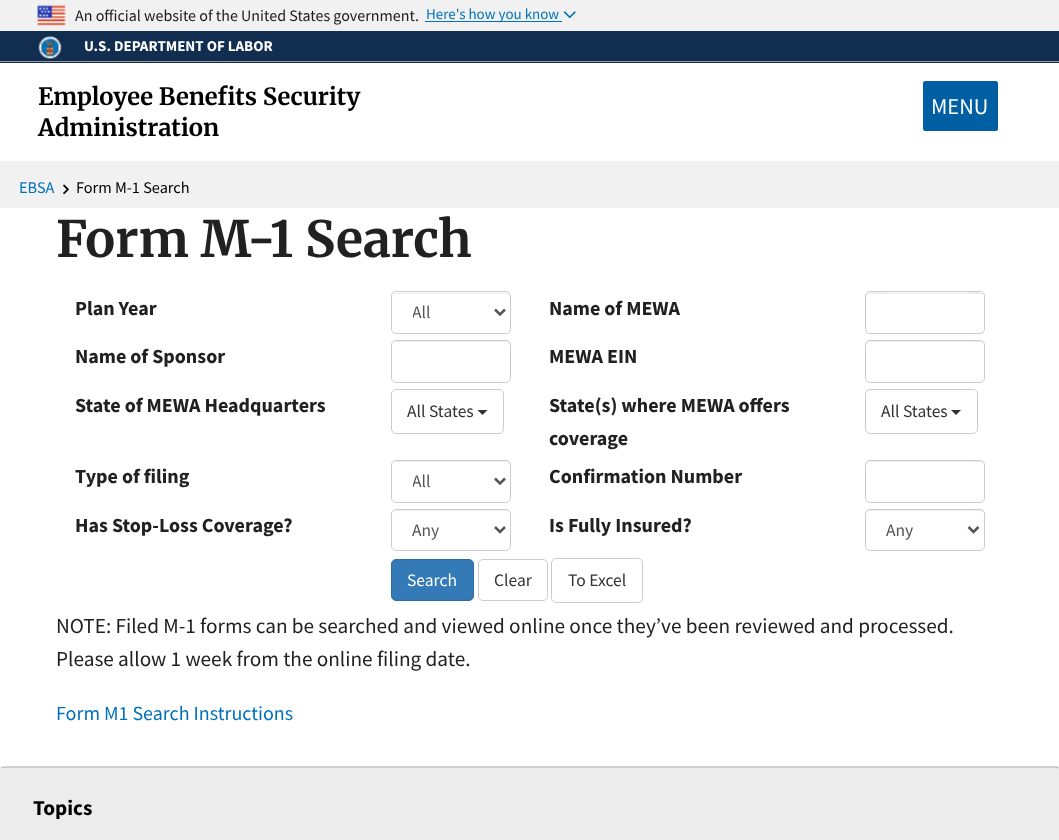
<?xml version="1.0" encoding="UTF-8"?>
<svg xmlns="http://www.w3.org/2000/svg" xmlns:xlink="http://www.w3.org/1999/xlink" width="1059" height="840">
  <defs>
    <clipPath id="clip1"><rect x="413" y="300" width="62" height="25" /></clipPath>
    <clipPath id="clip2"><rect x="413" y="469" width="62" height="25" /></clipPath>
  </defs>
  <rect width="100%" height="100%" fill="#ffffff" />
  <rect width="1059" height="31" fill="#f1f1f1" />
  <image x="37" y="4" width="29" height="22" xlink:href="image1.png" />
  <image x="564" y="11" width="12" height="8" xlink:href="image2.png" />
  <rect x="425" y="21" width="137" height="1" fill="#0071bc" />
  <rect y="31" width="1059" height="32" fill="#112e51" />
  <rect y="61" width="1059" height="1" fill="#979797" />
  <image x="38" y="36" width="24" height="24" xlink:href="image3.png" />
  <rect x="923" y="81" width="75" height="50" rx="2.5" fill="#005ea2" />
  <rect y="161" width="1059" height="47" fill="#f1f1f1" />
  <image x="63" y="184" width="6" height="11" xlink:href="image4.png" />
  <path d="M 396 294 h 110 c 2 0 4 1 4 4 c 0 -2 -1 -4 -3 -5 h -110 l -3 1 z" fill="#ececec" />
  <rect x="391.5" y="291.5" width="119" height="42" rx="4.5" fill="none" stroke="#cccccc" />
  <path d="M 495 309.5 l 5 5 l 5 -5" fill="none" stroke="#555555" stroke-width="2.5" />
  <path d="M 870 294 h 110 c 2 0 4 1 4 4 c 0 -10 -19 -5 -22 -5 h -74 c -3 0 -22 -5 -22 5 c 0 -3 2 -4 4 -4 z" fill="#ececec" />
  <rect x="865.5" y="291.5" width="119" height="42" rx="4.5" fill="none" stroke="#cccccc" />
  <path d="M 396 342 h 110 c 2 0 4 2 4 4 l -1 -3 l -2 -2 h -92 c 0 0 -18 -3 -21 2 z" fill="#ececec" />
  <rect x="391.5" y="340.5" width="119" height="42" rx="4.5" fill="none" stroke="#cccccc" />
  <path d="M 870 342 h 110 c 2 0 4 2 4 4 c 0 -10 -19 -5 -22 -5 h -74 c -3 0 -22 -5 -22 5 c 0 -2 2 -4 4 -4 z" fill="#ececec" />
  <rect x="865.5" y="340.5" width="119" height="42" rx="4.5" fill="none" stroke="#cccccc" />
  <rect x="391.5" y="389.5" width="112" height="44" rx="4.5" fill="none" stroke="#cccccc" />
  <path d="M 477.5 410 h 10 l -5 5 z" fill="#333333" />
  <rect x="865.5" y="389.5" width="112" height="44" rx="4.5" fill="none" stroke="#cccccc" />
  <path d="M 951 410 h 10 l -5 5 z" fill="#333333" />
  <path d="M 396 462 h 110 c 2 0 4 2 4 4 l -1 -3 l -2 -2 h -92 c 0 0 -18 -3 -21 2 z" fill="#ececec" />
  <rect x="391.5" y="460.5" width="119" height="42" rx="4.5" fill="none" stroke="#cccccc" />
  <path d="M 495 478.5 l 5 5 l 5 -5" fill="none" stroke="#555555" stroke-width="2.5" />
  <path d="M 870 462 h 110 c 2 0 4 2 4 4 c 0 -10 -19 -5 -22 -5 h -74 c -3 0 -22 -5 -22 5 c 0 -2 2 -4 4 -4 z" fill="#ececec" />
  <rect x="865.5" y="460.5" width="119" height="42" rx="4.5" fill="none" stroke="#cccccc" />
  <path d="M 396 511 h 110 c 2 0 4 2 4 4 l -1 -3 l -2 -2 h -92 c 0 0 -18 -3 -21 2 z" fill="#ececec" />
  <rect x="391.5" y="509.5" width="119" height="41" rx="4.5" fill="none" stroke="#cccccc" />
  <path d="M 495 527 l 5 5 l 5 -5" fill="none" stroke="#555555" stroke-width="2.5" />
  <path d="M 870 511 h 110 c 2 0 4 2 4 4 c 0 -10 -19 -5 -22 -5 h -74 c -3 0 -22 -5 -22 5 c 0 -2 2 -4 4 -4 z" fill="#ececec" />
  <rect x="865.5" y="509.5" width="119" height="41" rx="4.5" fill="none" stroke="#cccccc" />
  <path d="M 968.5 527 l 5 5 l 5 -5" fill="none" stroke="#555555" stroke-width="2.5" />
  <rect x="391.5" y="559.5" width="82" height="41" rx="4.5" fill="#337ab7" stroke="#2e6da4" />
  <rect x="478.5" y="559.5" width="69" height="41" rx="4.5" fill="none" stroke="#cccccc" />
  <rect x="551.5" y="558.5" width="91" height="44" rx="4.5" fill="none" stroke="#cccccc" />
  <rect y="766" width="1059" height="74" fill="#ececec" />
  <path d="M 2 768 l 3 -1 h 1050 l 3 1" fill="none" stroke="#aeb0b5" stroke-width="1.2" />
  <rect x="2" y="768" width="2" height="1" fill="#ececec" />
  <text x="75" y="21" style="font-family: 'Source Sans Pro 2'; font-size: 16px; fill: #1b1b1b">An official website of the United States government.</text>
  <text x="426" y="19" style="font-family: Source Sans Pro; font-size: 15px; fill: #0071bc">Here's how you know</text>
  <text x="84" y="51" style="font-family: Source Sans Pro; font-size: 15px; font-weight: bold; fill: #ffffff">U.S. DEPARTMENT OF LABOR</text>
  <text x="38" y="105" style="font-family: Merriweather; font-size: 23.75px; font-weight: bold; fill: #000000">Employee Benefits Security</text>
  <text x="38" y="136" style="font-family: Merriweather; font-size: 23.75px; font-weight: bold; fill: #000000">Administration</text>
  <text x="931" y="114" style="font-family: Source Sans Pro; font-size: 22.5px; fill: #ffffff">MENU</text>
  <text x="19" y="193" style="font-family: Source Sans Pro; font-size: 16.25px; fill: #0071bc">EBSA</text>
  <text x="76" y="193" style="font-family: Source Sans Pro; font-size: 16.25px; fill: #000000">Form M-1 Search</text>
  <text x="56" y="257" style="font-family: Merriweather; font-size: 50px; font-weight: bold; fill: #212121">Form M-1 Search</text>
  <text x="75" y="315" style="font-family: Source Sans Pro; font-size: 20px; font-weight: bold; fill: #212121">Plan Year</text>
  <g clip-path="url(#clip1)">
    <text x="412" y="318" style="font-family: Source Sans Pro; font-size: 17.5px; fill: #555555">All</text>
  </g>
  <text x="549" y="315" style="font-family: Source Sans Pro; font-size: 20px; font-weight: bold; fill: #212121">Name of MEWA</text>
  <text x="75" y="363" style="font-family: Source Sans Pro; font-size: 20px; font-weight: bold; fill: #212121">Name of Sponsor</text>
  <text x="549" y="363" style="font-family: Source Sans Pro; font-size: 20px; font-weight: bold; fill: #212121">MEWA EIN</text>
  <text x="75" y="412" style="font-family: Source Sans Pro; font-size: 20px; font-weight: bold; fill: #212121">State of MEWA Headquarters</text>
  <text x="407" y="417" style="font-family: Source Sans Pro; font-size: 17.5px; fill: #333333">All States</text>
  <text x="549" y="412" style="font-family: Source Sans Pro; font-size: 20px; font-weight: bold; fill: #212121">State(s) where MEWA offers</text>
  <text x="549" y="445" style="font-family: Source Sans Pro; font-size: 20px; font-weight: bold; fill: #212121">coverage</text>
  <text x="881" y="417" style="font-family: Source Sans Pro; font-size: 17.5px; fill: #333333">All States</text>
  <text x="75" y="483" style="font-family: Source Sans Pro; font-size: 20px; font-weight: bold; fill: #212121">Type of filing</text>
  <g clip-path="url(#clip2)">
    <text x="412" y="487" style="font-family: Source Sans Pro; font-size: 17.5px; fill: #555555">All</text>
  </g>
  <text x="549" y="483" style="font-family: Source Sans Pro; font-size: 20px; font-weight: bold; fill: #212121">Confirmation Number</text>
  <text x="75" y="532" style="font-family: Source Sans Pro; font-size: 20px; font-weight: bold; fill: #212121">Has Stop-Loss Coverage?</text>
  <text x="412" y="536" style="font-family: Source Sans Pro; font-size: 17.5px; fill: #555555">Any</text>
  <text x="549" y="532" style="font-family: Source Sans Pro; font-size: 20px; font-weight: bold; fill: #212121">Is Fully Insured?</text>
  <text x="886" y="536" style="font-family: Source Sans Pro; font-size: 17.5px; fill: #555555">Any</text>
  <text x="407" y="586" style="font-family: Source Sans Pro; font-size: 17.5px; fill: #ffffff">Search</text>
  <text x="494" y="586" style="font-family: Source Sans Pro; font-size: 17.5px; fill: #333333">Clear</text>
  <text x="568" y="586" style="font-family: Source Sans Pro; font-size: 17.5px; fill: #333333">To Excel</text>
  <text x="56" y="633" style="font-family: Source Sans Pro; font-size: 21.25px; fill: #212121">NOTE: Filed M-1 forms can be searched and viewed online once they’ve been reviewed and processed.</text>
  <text x="56" y="666" style="font-family: Source Sans Pro; font-size: 21.25px; fill: #212121">Please allow 1 week from the online filing date.</text>
  <text x="56" y="720" style="font-family: Source Sans Pro; font-size: 20px; fill: #0071bc">Form M1 Search Instructions</text>
  <text x="33" y="815" style="font-family: Source Sans Pro; font-size: 21.25px; font-weight: bold; fill: #000000">Topics</text>
</svg>
